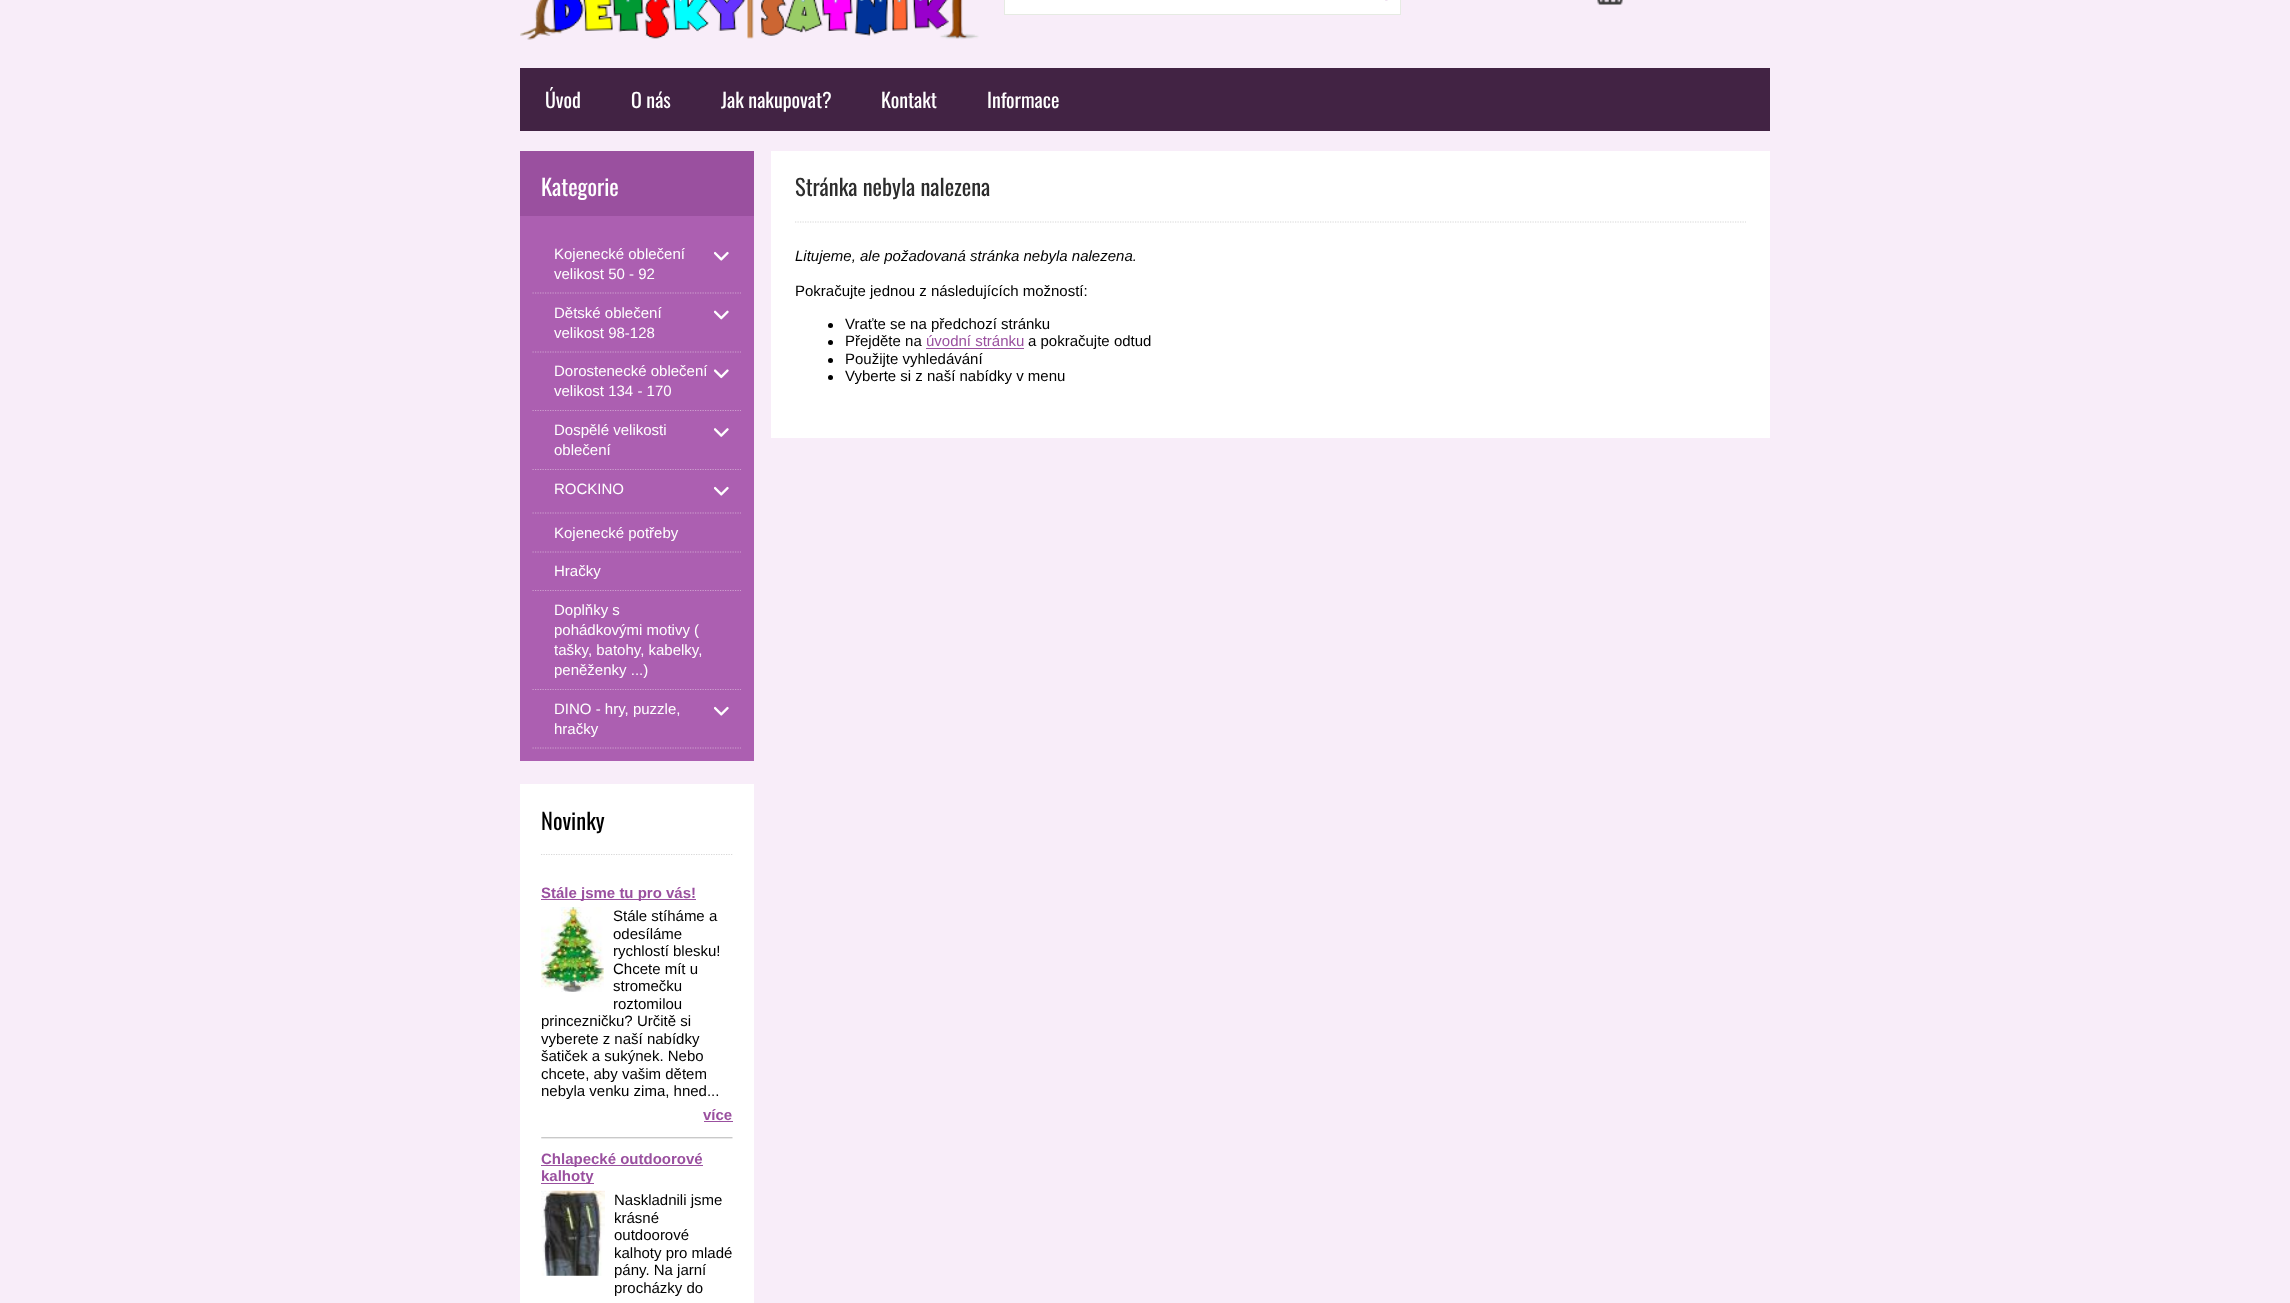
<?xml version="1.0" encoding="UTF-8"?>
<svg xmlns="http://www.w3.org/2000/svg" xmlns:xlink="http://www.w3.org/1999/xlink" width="2290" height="1303">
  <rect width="100%" height="100%" fill="#f8edf9" />
  <image x="520" y="0" width="459" height="40" xlink:href="image1.png" />
  <rect x="1004.5" y="-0.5" width="396" height="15" fill="#ffffff" stroke="#e6ebe3" />
  <image x="1385" y="0" width="3" height="1" xlink:href="image2.png" />
  <image x="1597" y="0" width="26" height="5" xlink:href="image3.png" />
  <rect x="520" y="68" width="1250" height="63" fill="#422344" />
  <rect x="520" y="216" width="234" height="545" fill="#ac5fb1" />
  <rect x="520" y="151" width="234" height="65" fill="#9a509f" />
  <path d="M 532.5 293 h 208.5" fill="none" stroke="#cd9fd0" stroke-width="1.2" stroke-dasharray="1.25 1.25" />
  <image x="714" y="251" width="15" height="10" xlink:href="image4.png" />
  <path d="M 532.5 352 h 208.5" fill="none" stroke="#cd9fd0" stroke-width="1.2" stroke-dasharray="1.25 1.25" />
  <image x="714" y="310" width="15" height="10" xlink:href="image5.png" />
  <path d="M 532.5 410.5 h 208.5" fill="none" stroke="#cd9fd0" stroke-width="1.2" stroke-dasharray="1.25 1.25" />
  <image x="714" y="369" width="15" height="10" xlink:href="image6.png" />
  <path d="M 532.5 469.5 h 208.5" fill="none" stroke="#cd9fd0" stroke-width="1.2" stroke-dasharray="1.25 1.25" />
  <image x="714" y="428" width="15" height="9" xlink:href="image7.png" />
  <path d="M 532.5 513 h 208.5" fill="none" stroke="#cd9fd0" stroke-width="1.2" stroke-dasharray="1.25 1.25" />
  <image x="714" y="486" width="15" height="10" xlink:href="image4.png" />
  <path d="M 532.5 552 h 208.5" fill="none" stroke="#cd9fd0" stroke-width="1.2" stroke-dasharray="1.25 1.25" />
  <path d="M 532.5 590.5 h 208.5" fill="none" stroke="#cd9fd0" stroke-width="1.2" stroke-dasharray="1.25 1.25" />
  <path d="M 532.5 689.5 h 208.5" fill="none" stroke="#cd9fd0" stroke-width="1.2" stroke-dasharray="1.25 1.25" />
  <path d="M 532.5 748 h 208.5" fill="none" stroke="#cd9fd0" stroke-width="1.2" stroke-dasharray="1.25 1.25" />
  <image x="714" y="706" width="15" height="10" xlink:href="image4.png" />
  <rect x="520" y="784" width="234" height="519" fill="#ffffff" />
  <path d="M 541 854.5 h 191.5" fill="none" stroke="#d8d8d8" stroke-width="1.2" stroke-dasharray="1.25 1.25" />
  <image x="541" y="1137" width="192" height="2" xlink:href="image8.png" />
  <rect x="541" y="899" width="155" height="1" fill="#9a509f" />
  <image x="541" y="907" width="63" height="85" xlink:href="image9.png" />
  <rect x="704" y="1121" width="29" height="1" fill="#9a509f" />
  <rect x="541" y="1165" width="162" height="1" fill="#9a509f" />
  <rect x="541" y="1183" width="53" height="1" fill="#9a509f" />
  <image x="541" y="1190" width="64" height="86" xlink:href="image10.png" />
  <rect x="771" y="151" width="999" height="287" fill="#ffffff" />
  <path d="M 795 222 h 951" fill="none" stroke="#d8d8d8" stroke-width="1.2" stroke-dasharray="1.25 1.25" />
  <circle cx="830.5" cy="325.5" r="2.5" fill="#000000" />
  <circle cx="830.5" cy="342.5" r="2.5" fill="#000000" />
  <rect x="926" y="348" width="98" height="1" fill="#9a509f" />
  <circle cx="830.5" cy="360.5" r="2.5" fill="#000000" />
  <circle cx="830.5" cy="377.5" r="2.5" fill="#000000" />
  <text x="545" y="108" style="font-family: Oswald; font-size: 20px; fill: #ffffff">Úvod</text>
  <text x="631" y="108" style="font-family: Oswald; font-size: 20px; fill: #ffffff">O nás</text>
  <text x="721" y="108" style="font-family: Oswald; font-size: 20px; fill: #ffffff">Jak nakupovat?</text>
  <text x="881" y="108" style="font-family: Oswald; font-size: 20px; fill: #ffffff">Kontakt</text>
  <text x="987" y="108" style="font-family: Oswald; font-size: 20px; fill: #ffffff">Informace</text>
  <text x="541" y="196" style="font-family: Oswald; font-size: 22.5px; fill: #ffffff">Kategorie</text>
  <text x="554" y="259" style="font-family: Liberation Sans; font-size: 15px; fill: #ffffff">Kojenecké oblečení</text>
  <text x="554" y="279" style="font-family: Liberation Sans; font-size: 15px; fill: #ffffff">velikost 50 - 92</text>
  <text x="554" y="318" style="font-family: Liberation Sans; font-size: 15px; fill: #ffffff">Dětské oblečení</text>
  <text x="554" y="338" style="font-family: Liberation Sans; font-size: 15px; fill: #ffffff">velikost 98-128</text>
  <text x="554" y="376" style="font-family: Liberation Sans; font-size: 15px; fill: #ffffff">Dorostenecké oblečení</text>
  <text x="554" y="396" style="font-family: Liberation Sans; font-size: 15px; fill: #ffffff">velikost 134 - 170</text>
  <text x="554" y="435" style="font-family: Liberation Sans; font-size: 15px; fill: #ffffff">Dospělé velikosti</text>
  <text x="554" y="455" style="font-family: Liberation Sans; font-size: 15px; fill: #ffffff">oblečení</text>
  <text x="554" y="494" style="font-family: Liberation Sans; font-size: 15px; fill: #ffffff">ROCKINO</text>
  <text x="554" y="538" style="font-family: Liberation Sans; font-size: 15px; fill: #ffffff">Kojenecké potřeby</text>
  <text x="554" y="576" style="font-family: Liberation Sans; font-size: 15px; fill: #ffffff">Hračky</text>
  <text x="554" y="615" style="font-family: Liberation Sans; font-size: 15px; fill: #ffffff">Doplňky s</text>
  <text x="554" y="635" style="font-family: Liberation Sans; font-size: 15px; fill: #ffffff">pohádkovými motivy (</text>
  <text x="554" y="655" style="font-family: Liberation Sans; font-size: 15px; fill: #ffffff">tašky, batohy, kabelky,</text>
  <text x="554" y="675" style="font-family: Liberation Sans; font-size: 15px; fill: #ffffff">peněženky ...)</text>
  <text x="554" y="714" style="font-family: Liberation Sans; font-size: 15px; fill: #ffffff">DINO - hry, puzzle,</text>
  <text x="554" y="734" style="font-family: Liberation Sans; font-size: 15px; fill: #ffffff">hračky</text>
  <text x="541" y="830" style="font-family: Oswald; font-size: 22.5px; fill: #000000">Novinky</text>
  <text x="541" y="898" style="font-family: Liberation Sans; font-size: 15px; font-weight: bold; fill: #9a509f">Stále jsme tu pro vás!</text>
  <text x="613" y="921" style="font-family: Liberation Sans; font-size: 15px; fill: #000000">Stále stíháme a</text>
  <text x="613" y="939" style="font-family: Liberation Sans; font-size: 15px; fill: #000000">odesíláme</text>
  <text x="613" y="956" style="font-family: Liberation Sans; font-size: 15px; fill: #000000">rychlostí blesku!</text>
  <text x="613" y="974" style="font-family: Liberation Sans; font-size: 15px; fill: #000000">Chcete mít u</text>
  <text x="613" y="991" style="font-family: Liberation Sans; font-size: 15px; fill: #000000">stromečku</text>
  <text x="613" y="1009" style="font-family: Liberation Sans; font-size: 15px; fill: #000000">roztomilou</text>
  <text x="541" y="1026" style="font-family: Liberation Sans; font-size: 15px; fill: #000000">princezničku? Určitě si</text>
  <text x="541" y="1044" style="font-family: Liberation Sans; font-size: 15px; fill: #000000">vyberete z naší nabídky</text>
  <text x="541" y="1061" style="font-family: Liberation Sans; font-size: 15px; fill: #000000">šatiček a sukýnek. Nebo</text>
  <text x="541" y="1079" style="font-family: Liberation Sans; font-size: 15px; fill: #000000">chcete, aby vašim dětem</text>
  <text x="541" y="1096" style="font-family: Liberation Sans; font-size: 15px; fill: #000000">nebyla venku zima, hned...</text>
  <text x="703" y="1120" style="font-family: Liberation Sans; font-size: 15px; font-weight: bold; fill: #9a509f">více</text>
  <text x="541" y="1164" style="font-family: Liberation Sans; font-size: 15px; font-weight: bold; fill: #9a509f">Chlapecké outdoorové</text>
  <text x="541" y="1181" style="font-family: Liberation Sans; font-size: 15px; font-weight: bold; fill: #9a509f">kalhoty</text>
  <text x="614" y="1205" style="font-family: Liberation Sans; font-size: 15px; fill: #000000">Naskladnili jsme</text>
  <text x="614" y="1223" style="font-family: Liberation Sans; font-size: 15px; fill: #000000">krásné</text>
  <text x="614" y="1240" style="font-family: Liberation Sans; font-size: 15px; fill: #000000">outdoorové</text>
  <text x="614" y="1258" style="font-family: Liberation Sans; font-size: 15px; fill: #000000">kalhoty pro mladé</text>
  <text x="614" y="1275" style="font-family: Liberation Sans; font-size: 15px; fill: #000000">pány. Na jarní</text>
  <text x="614" y="1293" style="font-family: Liberation Sans; font-size: 15px; fill: #000000">procházky do</text>
  <text x="795" y="196" style="font-family: Oswald; font-size: 22.5px; fill: #2d2d2d">Stránka nebyla nalezena</text>
  <text x="795" y="261" style="font-family: Liberation Sans; font-size: 15px; font-style: italic; fill: #000000">Litujeme, ale požadovaná stránka nebyla nalezena.</text>
  <text x="795" y="296" style="font-family: Liberation Sans; font-size: 15px; fill: #000000">Pokračujte jednou z následujících možností:</text>
  <text x="845" y="329" style="font-family: Liberation Sans; font-size: 15px; fill: #000000">Vraťte se na předchozí stránku</text>
  <text x="845" y="346" style="font-family: Liberation Sans; font-size: 15px; fill: #000000">Přejděte na</text>
  <text x="926" y="346" style="font-family: Liberation Sans; font-size: 15px; fill: #9a509f">úvodní stránku</text>
  <text x="1028" y="346" style="font-family: Liberation Sans; font-size: 15px; fill: #000000">a pokračujte odtud</text>
  <text x="845" y="364" style="font-family: Liberation Sans; font-size: 15px; fill: #000000">Použijte vyhledávání</text>
  <text x="845" y="381" style="font-family: Liberation Sans; font-size: 15px; fill: #000000">Vyberte si z naší nabídky v menu</text>
</svg>
